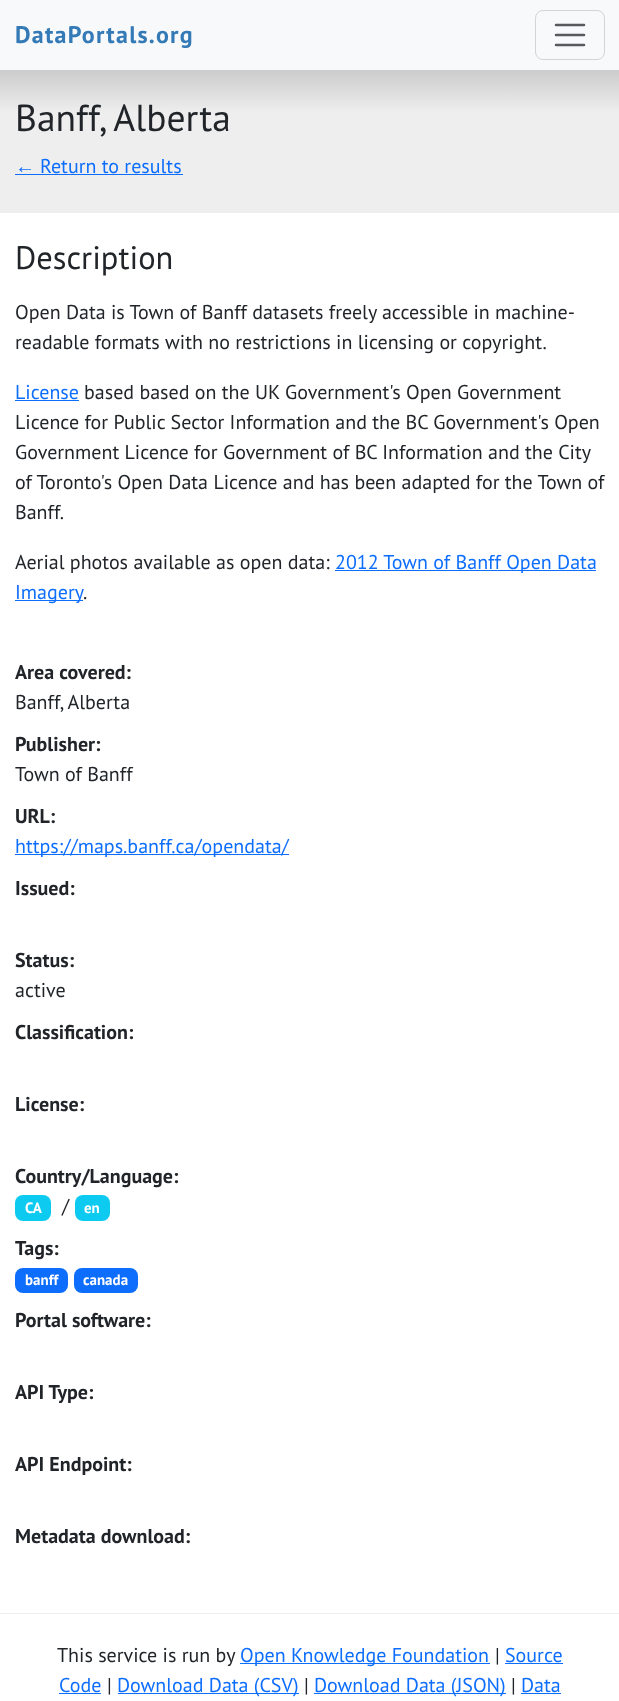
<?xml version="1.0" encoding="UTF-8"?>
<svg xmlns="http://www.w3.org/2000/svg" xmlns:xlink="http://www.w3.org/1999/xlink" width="619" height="1701">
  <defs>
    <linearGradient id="g1" gradientUnits="userSpaceOnUse" x1="310" y1="213" x2="310" y2="70"><stop offset="0.7" stop-color="#eeeeee" /><stop offset="1" stop-color="#cccccc" /></linearGradient>
  </defs>
  <rect width="100%" height="100%" fill="#ffffff" />
  <rect width="619" height="70" fill="#f8f9fa" />
  <rect x="535.5" y="10.5" width="69" height="49" rx="7.5" fill="none" stroke="#d3d4d5" />
  <path d="M 556 25 h 28 m -28 10 h 28 m -28 10 h 28" fill="none" stroke="#575a5d" stroke-width="2.5" stroke-linecap="round" />
  <rect y="70" width="619" height="143" fill="url(#g1)" />
  <rect x="15" y="174" width="168" height="1" fill="#0d6efd" />
  <rect x="15" y="400" width="64" height="1" fill="#0d6efd" />
  <rect x="335" y="570" width="261" height="1" fill="#0d6efd" />
  <rect x="15" y="600" width="68" height="1" fill="#0d6efd" />
  <rect x="15" y="854" width="274" height="1" fill="#0d6efd" />
  <rect x="15" y="1195" width="36" height="26" rx="8" fill="#0dcaf0" />
  <rect x="75" y="1195" width="35" height="26" rx="8" fill="#0dcaf0" />
  <rect x="15" y="1268" width="53" height="25" rx="8" fill="#0d6efd" />
  <rect x="74" y="1268" width="64" height="25" rx="8" fill="#0d6efd" />
  <rect y="1613" width="619" height="1" fill="#eeeeee" />
  <rect x="240" y="1663" width="250" height="1" fill="#0d6efd" />
  <rect x="505" y="1663" width="58" height="1" fill="#0d6efd" />
  <rect x="59" y="1693" width="42" height="1" fill="#0d6efd" />
  <rect x="118" y="1693" width="181" height="1" fill="#0d6efd" />
  <rect x="314" y="1693" width="192" height="1" fill="#0d6efd" />
  <rect x="521" y="1693" width="40" height="1" fill="#0d6efd" />
  <text x="15" y="43" style="font-family: PT Sans; font-size: 24px; font-weight: bold; letter-spacing: 1.25px; fill: #337ab7">DataPortals.org</text>
  <text x="15" y="131" style="font-family: PT Sans; font-size: 37.5px; fill: #212529">Banff, Alberta</text>
  <text x="15" y="173" style="font-family: Liberation Sans; font-size: 20px; fill: #0d6efd">←</text>
  <text x="40" y="173" style="font-family: PT Sans; font-size: 20px; fill: #0d6efd">Return to results</text>
  <text x="15" y="269" style="font-family: PT Sans; font-size: 32.5px; fill: #212529">Description</text>
  <text x="15" y="319" style="font-family: PT Sans; font-size: 20px; fill: #212529">Open Data is Town of Banff datasets freely accessible in machine-</text>
  <text x="15" y="349" style="font-family: PT Sans; font-size: 20px; fill: #212529">readable formats with no restrictions in licensing or copyright.</text>
  <text x="15" y="399" style="font-family: PT Sans; font-size: 20px; fill: #0d6efd">License</text>
  <text x="84" y="399" style="font-family: PT Sans; font-size: 20px; fill: #212529">based based on the UK Government's Open Government</text>
  <text x="15" y="429" style="font-family: PT Sans; font-size: 20px; fill: #212529">Licence for Public Sector Information and the BC Government's Open</text>
  <text x="15" y="459" style="font-family: PT Sans; font-size: 20px; fill: #212529">Government Licence for Government of BC Information and the City</text>
  <text x="15" y="489" style="font-family: PT Sans; font-size: 20px; fill: #212529">of Toronto's Open Data Licence and has been adapted for the Town of</text>
  <text x="15" y="519" style="font-family: PT Sans; font-size: 20px; fill: #212529">Banff.</text>
  <text x="15" y="569" style="font-family: PT Sans; font-size: 20px; fill: #212529">Aerial photos available as open data:</text>
  <text x="335" y="569" style="font-family: PT Sans; font-size: 20px; fill: #0d6efd">2012 Town of Banff Open Data</text>
  <text x="15" y="599" style="font-family: PT Sans; font-size: 20px; fill: #0d6efd">Imagery</text>
  <text x="83" y="599" style="font-family: PT Sans; font-size: 20px; fill: #212529">.</text>
  <text x="15" y="679" style="font-family: PT Sans; font-size: 20px; font-weight: bold; fill: #212529">Area covered:</text>
  <text x="15" y="709" style="font-family: PT Sans; font-size: 20px; fill: #212529">Banff, Alberta</text>
  <text x="15" y="751" style="font-family: PT Sans; font-size: 20px; font-weight: bold; fill: #212529">Publisher:</text>
  <text x="15" y="781" style="font-family: PT Sans; font-size: 20px; fill: #212529">Town of Banff</text>
  <text x="15" y="823" style="font-family: PT Sans; font-size: 20px; font-weight: bold; fill: #212529">URL:</text>
  <text x="15" y="853" style="font-family: PT Sans; font-size: 20px; fill: #0d6efd">https://maps.banff.ca/opendata/</text>
  <text x="15" y="895" style="font-family: PT Sans; font-size: 20px; font-weight: bold; fill: #212529">Issued:</text>
  <text x="15" y="967" style="font-family: PT Sans; font-size: 20px; font-weight: bold; fill: #212529">Status:</text>
  <text x="15" y="997" style="font-family: PT Sans; font-size: 20px; fill: #212529">active</text>
  <text x="15" y="1039" style="font-family: PT Sans; font-size: 20px; font-weight: bold; fill: #212529">Classification:</text>
  <text x="15" y="1111" style="font-family: PT Sans; font-size: 20px; font-weight: bold; fill: #212529">License:</text>
  <text x="15" y="1183" style="font-family: PT Sans; font-size: 20px; font-weight: bold; fill: #212529">Country/Language:</text>
  <text x="25" y="1213" style="font-family: PT Sans; font-size: 15px; font-weight: bold; fill: #ffffff">CA</text>
  <text x="62" y="1213" style="font-family: PT Sans; font-size: 20px; fill: #212529">/</text>
  <text x="84" y="1213" style="font-family: PT Sans; font-size: 15px; font-weight: bold; fill: #ffffff">en</text>
  <text x="15" y="1255" style="font-family: PT Sans; font-size: 20px; font-weight: bold; fill: #212529">Tags:</text>
  <text x="25" y="1285" style="font-family: PT Sans; font-size: 15px; font-weight: bold; fill: #ffffff">banff</text>
  <text x="83" y="1285" style="font-family: PT Sans; font-size: 15px; font-weight: bold; fill: #ffffff">canada</text>
  <text x="15" y="1327" style="font-family: PT Sans; font-size: 20px; font-weight: bold; fill: #212529">Portal software:</text>
  <text x="15" y="1399" style="font-family: PT Sans; font-size: 20px; font-weight: bold; fill: #212529">API Type:</text>
  <text x="15" y="1471" style="font-family: PT Sans; font-size: 20px; font-weight: bold; fill: #212529">API Endpoint:</text>
  <text x="15" y="1543" style="font-family: PT Sans; font-size: 20px; font-weight: bold; fill: #212529">Metadata download:</text>
  <text x="57" y="1662" style="font-family: PT Sans; font-size: 20px; fill: #212529">This service is run by</text>
  <text x="240" y="1662" style="font-family: PT Sans; font-size: 20px; fill: #0d6efd">Open Knowledge Foundation</text>
  <text x="495" y="1662" style="font-family: PT Sans; font-size: 20px; fill: #212529">|</text>
  <text x="505" y="1662" style="font-family: PT Sans; font-size: 20px; fill: #0d6efd">Source</text>
  <text x="59" y="1692" style="font-family: PT Sans; font-size: 20px; fill: #0d6efd">Code</text>
  <text x="107" y="1692" style="font-family: PT Sans; font-size: 20px; fill: #212529">|</text>
  <text x="117" y="1692" style="font-family: PT Sans; font-size: 20px; fill: #0d6efd">Download Data (CSV)</text>
  <text x="304" y="1692" style="font-family: PT Sans; font-size: 20px; fill: #212529">|</text>
  <text x="314" y="1692" style="font-family: PT Sans; font-size: 20px; fill: #0d6efd">Download Data (JSON)</text>
  <text x="511" y="1692" style="font-family: PT Sans; font-size: 20px; fill: #212529">|</text>
  <text x="521" y="1692" style="font-family: PT Sans; font-size: 20px; fill: #0d6efd">Data</text>
</svg>
